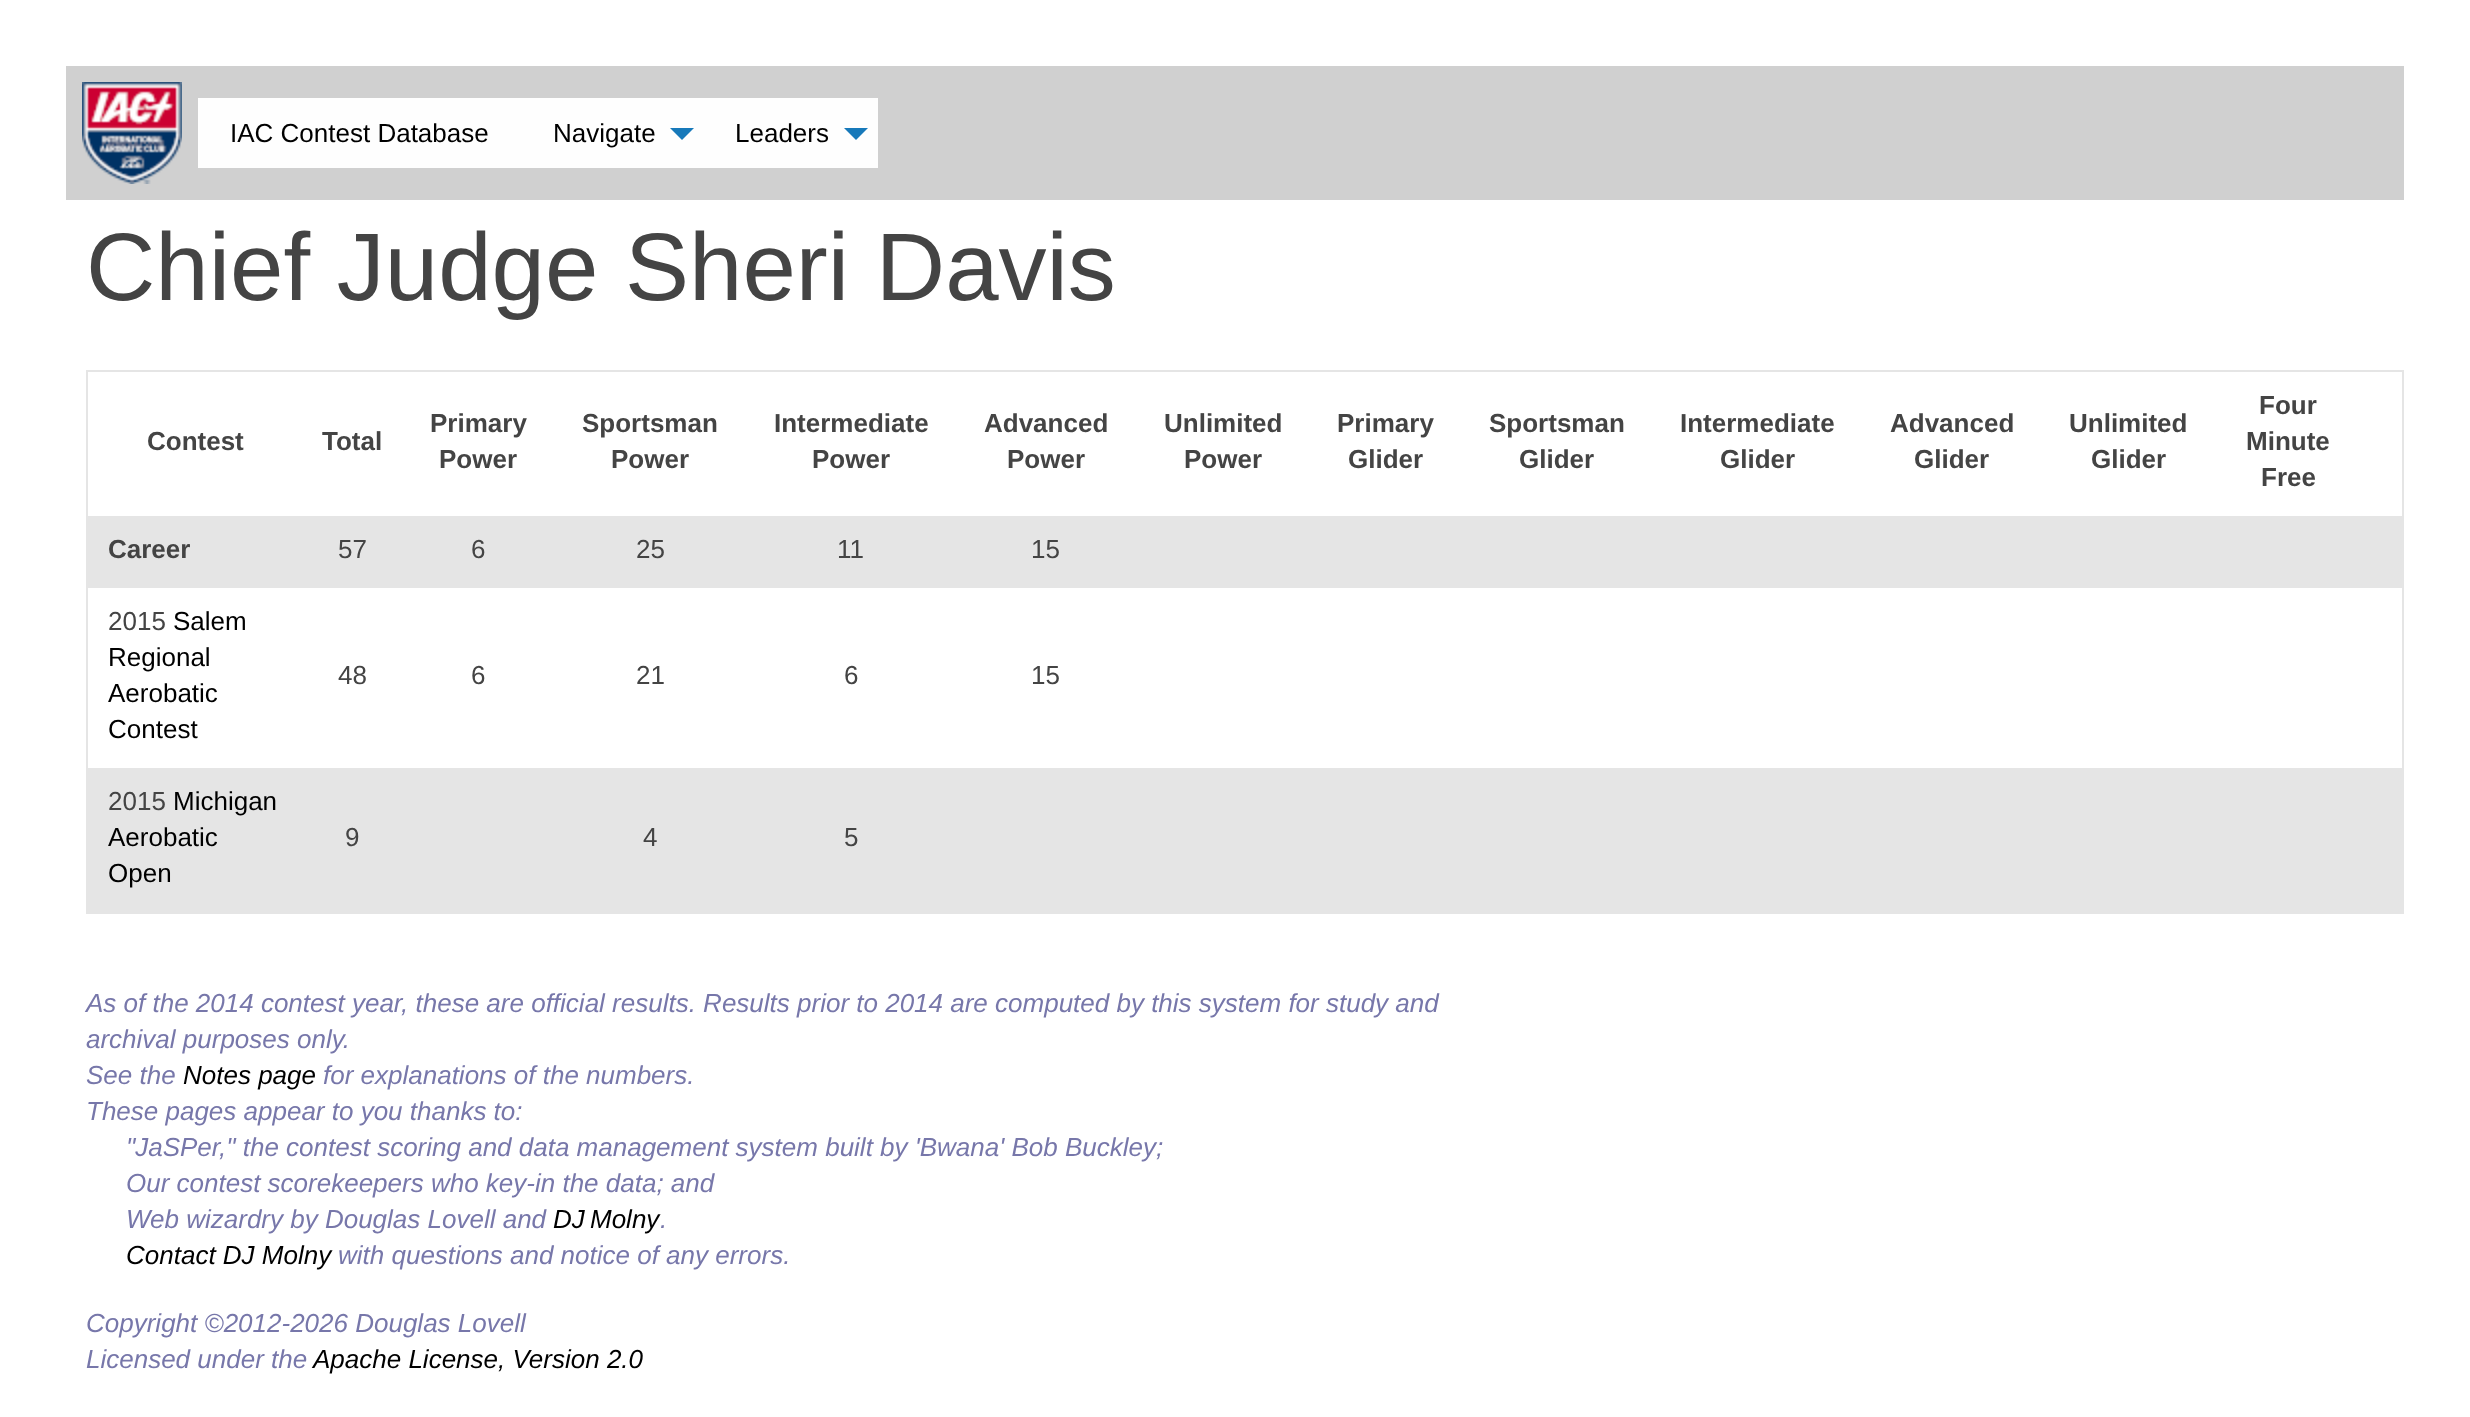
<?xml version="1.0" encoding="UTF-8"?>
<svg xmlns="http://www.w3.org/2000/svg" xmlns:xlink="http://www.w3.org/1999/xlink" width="2470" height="1417">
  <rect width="100%" height="100%" fill="#ffffff" />
  <rect x="66" y="66" width="2338" height="134" fill="#d0d0d0" />
  <image x="82" y="82" width="100" height="102" xlink:href="image1.png" />
  <rect x="198" y="98" width="680" height="70" fill="#fefefe" />
  <path d="M 670 128 h 24 l -12 12 z" fill="#1779ba" />
  <path d="M 844 128 h 24 l -12 12 z" fill="#1779ba" />
  <rect x="86" y="370" width="2318" height="2" fill="#e5e5e5" />
  <rect x="2402" y="370" width="2" height="544" fill="#e5e5e5" />
  <rect x="86" y="912" width="2318" height="2" fill="#e5e5e5" />
  <rect x="86" y="370" width="2" height="544" fill="#e5e5e5" />
  <rect x="88" y="516" width="2314" height="72" fill="#e5e5e5" />
  <rect x="88" y="768" width="2314" height="144" fill="#e5e5e5" />
  <text x="230" y="142" style="font-family: Liberation Sans; font-size: 26px; fill: #000000">IAC Contest Database</text>
  <text x="553" y="142" style="font-family: Liberation Sans; font-size: 26px; fill: #000000">Navigate</text>
  <text x="735" y="142" style="font-family: Liberation Sans; font-size: 26px; fill: #000000">Leaders</text>
  <text x="86" y="300" style="font-family: Liberation Sans; font-size: 96px; fill: #444444">Chief Judge Sheri Davis</text>
  <text x="147" y="450" style="font-family: Liberation Sans; font-size: 26px; font-weight: bold; fill: #444444">Contest</text>
  <text x="322" y="450" style="font-family: Liberation Sans; font-size: 26px; font-weight: bold; fill: #444444">Total</text>
  <text x="430" y="432" style="font-family: Liberation Sans; font-size: 26px; font-weight: bold; fill: #444444">Primary</text>
  <text x="439" y="468" style="font-family: Liberation Sans; font-size: 26px; font-weight: bold; fill: #444444">Power</text>
  <text x="582" y="432" style="font-family: Liberation Sans; font-size: 26px; font-weight: bold; fill: #444444">Sportsman</text>
  <text x="611" y="468" style="font-family: Liberation Sans; font-size: 26px; font-weight: bold; fill: #444444">Power</text>
  <text x="774" y="432" style="font-family: Liberation Sans; font-size: 26px; font-weight: bold; fill: #444444">Intermediate</text>
  <text x="812" y="468" style="font-family: Liberation Sans; font-size: 26px; font-weight: bold; fill: #444444">Power</text>
  <text x="984" y="432" style="font-family: Liberation Sans; font-size: 26px; font-weight: bold; fill: #444444">Advanced</text>
  <text x="1007" y="468" style="font-family: Liberation Sans; font-size: 26px; font-weight: bold; fill: #444444">Power</text>
  <text x="1164" y="432" style="font-family: Liberation Sans; font-size: 26px; font-weight: bold; fill: #444444">Unlimited</text>
  <text x="1184" y="468" style="font-family: Liberation Sans; font-size: 26px; font-weight: bold; fill: #444444">Power</text>
  <text x="1337" y="432" style="font-family: Liberation Sans; font-size: 26px; font-weight: bold; fill: #444444">Primary</text>
  <text x="1348" y="468" style="font-family: Liberation Sans; font-size: 26px; font-weight: bold; fill: #444444">Glider</text>
  <text x="1489" y="432" style="font-family: Liberation Sans; font-size: 26px; font-weight: bold; fill: #444444">Sportsman</text>
  <text x="1519" y="468" style="font-family: Liberation Sans; font-size: 26px; font-weight: bold; fill: #444444">Glider</text>
  <text x="1680" y="432" style="font-family: Liberation Sans; font-size: 26px; font-weight: bold; fill: #444444">Intermediate</text>
  <text x="1720" y="468" style="font-family: Liberation Sans; font-size: 26px; font-weight: bold; fill: #444444">Glider</text>
  <text x="1890" y="432" style="font-family: Liberation Sans; font-size: 26px; font-weight: bold; fill: #444444">Advanced</text>
  <text x="1914" y="468" style="font-family: Liberation Sans; font-size: 26px; font-weight: bold; fill: #444444">Glider</text>
  <text x="2069" y="432" style="font-family: Liberation Sans; font-size: 26px; font-weight: bold; fill: #444444">Unlimited</text>
  <text x="2091" y="468" style="font-family: Liberation Sans; font-size: 26px; font-weight: bold; fill: #444444">Glider</text>
  <text x="2259" y="414" style="font-family: Liberation Sans; font-size: 26px; font-weight: bold; fill: #444444">Four</text>
  <text x="2246" y="450" style="font-family: Liberation Sans; font-size: 26px; font-weight: bold; fill: #444444">Minute</text>
  <text x="2261" y="486" style="font-family: Liberation Sans; font-size: 26px; font-weight: bold; fill: #444444">Free</text>
  <text x="108" y="558" style="font-family: Liberation Sans; font-size: 26px; font-weight: bold; fill: #444444">Career</text>
  <text x="338" y="558" style="font-family: Liberation Sans; font-size: 26px; fill: #444444">57</text>
  <text x="471" y="558" style="font-family: Liberation Sans; font-size: 26px; fill: #444444">6</text>
  <text x="636" y="558" style="font-family: Liberation Sans; font-size: 26px; fill: #444444">25</text>
  <text x="837" y="558" style="font-family: Liberation Sans; font-size: 26px; fill: #444444">11</text>
  <text x="1031" y="558" style="font-family: Liberation Sans; font-size: 26px; fill: #444444">15</text>
  <text x="108" y="630" style="font-family: Liberation Sans; font-size: 26px; fill: #444444">2015</text>
  <text x="173" y="630" style="font-family: Liberation Sans; font-size: 26px; fill: #000000">Salem</text>
  <text x="108" y="666" style="font-family: Liberation Sans; font-size: 26px; fill: #000000">Regional</text>
  <text x="108" y="702" style="font-family: Liberation Sans; font-size: 26px; fill: #000000">Aerobatic</text>
  <text x="108" y="738" style="font-family: Liberation Sans; font-size: 26px; fill: #000000">Contest</text>
  <text x="338" y="684" style="font-family: Liberation Sans; font-size: 26px; fill: #444444">48</text>
  <text x="471" y="684" style="font-family: Liberation Sans; font-size: 26px; fill: #444444">6</text>
  <text x="636" y="684" style="font-family: Liberation Sans; font-size: 26px; fill: #444444">21</text>
  <text x="844" y="684" style="font-family: Liberation Sans; font-size: 26px; fill: #444444">6</text>
  <text x="1031" y="684" style="font-family: Liberation Sans; font-size: 26px; fill: #444444">15</text>
  <text x="108" y="810" style="font-family: Liberation Sans; font-size: 26px; fill: #444444">2015</text>
  <text x="173" y="810" style="font-family: Liberation Sans; font-size: 26px; fill: #000000">Michigan</text>
  <text x="108" y="846" style="font-family: Liberation Sans; font-size: 26px; fill: #000000">Aerobatic</text>
  <text x="108" y="882" style="font-family: Liberation Sans; font-size: 26px; fill: #000000">Open</text>
  <text x="345" y="846" style="font-family: Liberation Sans; font-size: 26px; fill: #444444">9</text>
  <text x="643" y="846" style="font-family: Liberation Sans; font-size: 26px; fill: #444444">4</text>
  <text x="844" y="846" style="font-family: Liberation Sans; font-size: 26px; fill: #444444">5</text>
  <text x="86" y="1012" style="font-family: Liberation Sans; font-size: 26px; font-style: italic; fill: #7777aa">As of the 2014 contest year, these are official results. Results prior to 2014 are computed by this system for study and</text>
  <text x="86" y="1048" style="font-family: Liberation Sans; font-size: 26px; font-style: italic; fill: #7777aa">archival purposes only.</text>
  <text x="86" y="1084" style="font-family: Liberation Sans; font-size: 26px; font-style: italic; fill: #7777aa">See the</text>
  <text x="183" y="1084" style="font-family: Liberation Sans; font-size: 26px; font-style: italic; fill: #000000">Notes page</text>
  <text x="323" y="1084" style="font-family: Liberation Sans; font-size: 26px; font-style: italic; fill: #7777aa">for explanations of the numbers.</text>
  <text x="86" y="1120" style="font-family: Liberation Sans; font-size: 26px; font-style: italic; fill: #7777aa">These pages appear to you thanks to:</text>
  <text x="126" y="1156" style="font-family: Liberation Sans; font-size: 26px; font-style: italic; fill: #7777aa">"JaSPer," the contest scoring and data management system built by 'Bwana' Bob Buckley;</text>
  <text x="126" y="1192" style="font-family: Liberation Sans; font-size: 26px; font-style: italic; fill: #7777aa">Our contest scorekeepers who key-in the data; and</text>
  <text x="126" y="1228" style="font-family: Liberation Sans; font-size: 26px; font-style: italic; fill: #7777aa">Web wizardry by Douglas Lovell and</text>
  <text x="553" y="1228" word-spacing="-2" style="font-family: Liberation Sans; font-size: 26px; font-style: italic; fill: #000000">DJ Molny</text>
  <text x="660" y="1228" style="font-family: Liberation Sans; font-size: 26px; font-style: italic; fill: #7777aa">.</text>
  <text x="126" y="1264" style="font-family: Liberation Sans; font-size: 26px; font-style: italic; fill: #000000">Contact DJ Molny</text>
  <text x="338" y="1264" style="font-family: Liberation Sans; font-size: 26px; font-style: italic; fill: #7777aa">with questions and notice of any errors.</text>
  <text x="86" y="1332" style="font-family: Liberation Sans; font-size: 26px; font-style: italic; fill: #7777aa">Copyright ©2012-2026 Douglas Lovell</text>
  <text x="86" y="1368" style="font-family: Liberation Sans; font-size: 26px; font-style: italic; fill: #7777aa">Licensed under the</text>
  <text x="313" y="1368" style="font-family: Liberation Sans; font-size: 26px; font-style: italic; fill: #000000">Apache License, Version 2.0</text>
</svg>
